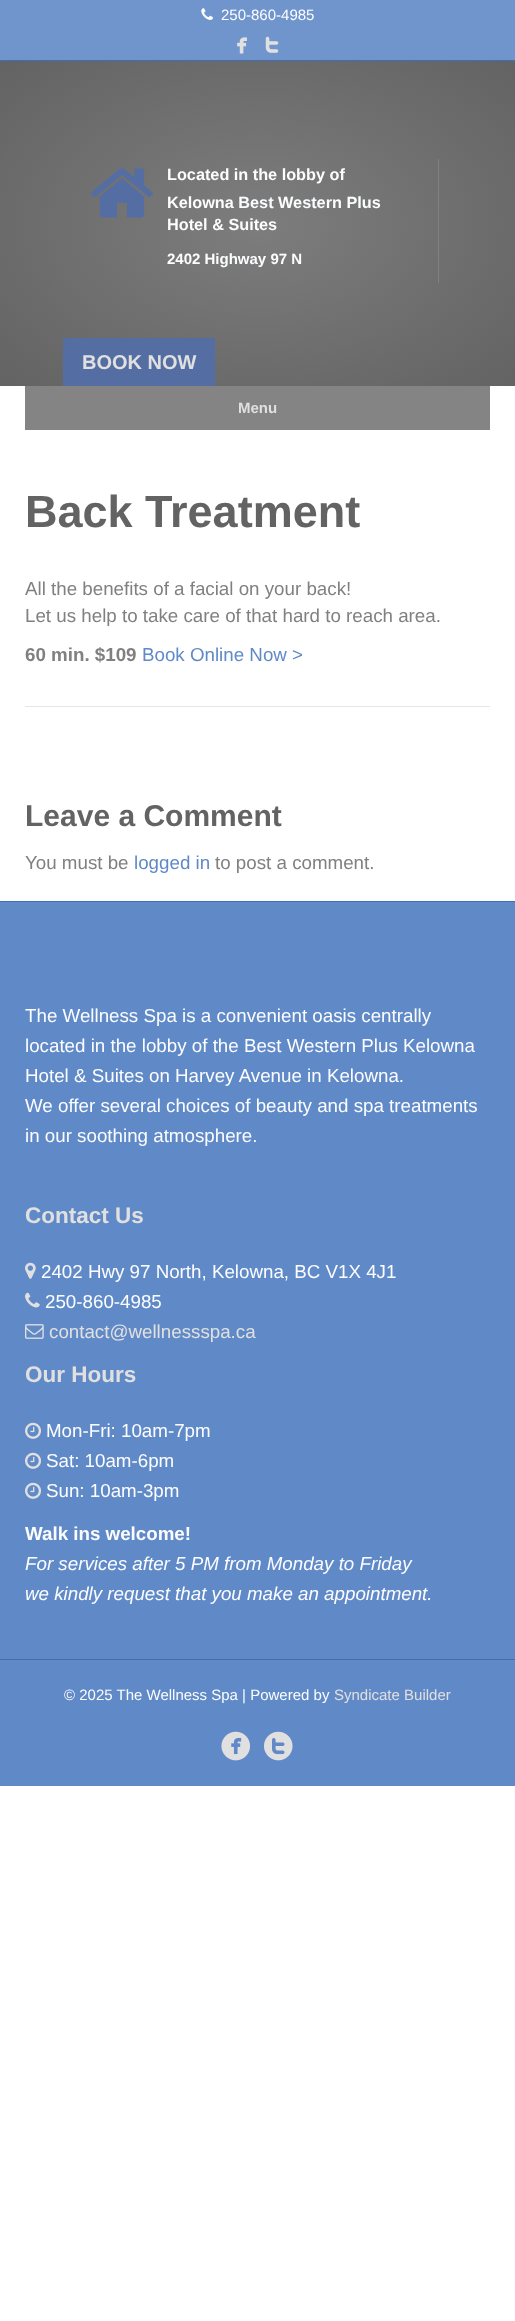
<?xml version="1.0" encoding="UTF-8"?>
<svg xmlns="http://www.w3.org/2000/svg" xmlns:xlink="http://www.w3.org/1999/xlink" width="515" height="2321">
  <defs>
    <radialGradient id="g1" gradientUnits="userSpaceOnUse" cx="0" cy="0" r="1" gradientTransform="matrix(364 0 0 230 258 224)"><stop offset="0" stop-color="#7d7d7d" /><stop offset="1" stop-color="#636363" /></radialGradient>
  </defs>
  <rect width="100%" height="100%" fill="#ffffff" />
  <rect width="515" height="60" fill="#7095cd" />
  <rect y="60" width="515" height="1" fill="#406eb4" />
  <image x="201" y="8" width="12" height="12" xlink:href="image1.png" />
  <image x="237" y="37" width="10" height="17" xlink:href="image2.png" />
  <image x="265" y="36" width="14" height="17" xlink:href="image3.png" />
  <rect y="61" width="515" height="325" fill="url(#g1)" />
  <rect x="438" y="159" width="1" height="124" fill="#808080" />
  <image x="91" y="168" width="62" height="50" xlink:href="image4.png" />
  <rect x="63" y="338" width="152" height="48" fill="#546ea4" />
  <rect x="25" y="386" width="465" height="44" fill="#848484" />
  <rect x="25" y="706" width="465" height="1" fill="#e6e6e6" />
  <rect y="902" width="515" height="757" fill="#6089c7" />
  <rect y="901" width="515" height="1" fill="#406eb4" />
  <image x="25" y="1262" width="11" height="17" xlink:href="image5.png" />
  <image x="25" y="1292" width="15" height="16" xlink:href="image6.png" />
  <image x="25" y="1324" width="19" height="15" xlink:href="image7.png" />
  <image x="25" y="1422" width="17" height="17" xlink:href="image8.png" />
  <image x="25" y="1452" width="17" height="17" xlink:href="image8.png" />
  <image x="25" y="1482" width="17" height="17" xlink:href="image8.png" />
  <rect y="1660" width="515" height="126" fill="#6089c7" />
  <rect y="1659" width="515" height="1" fill="#406eb4" />
  <image x="221" y="1731" width="30" height="30" xlink:href="image9.png" />
  <image x="264" y="1731" width="29" height="30" xlink:href="image10.png" />
  <text x="221" y="20" style="font-family: Liberation Sans; font-size: 15px; fill: #fcfdff">250-860-4985</text>
  <text x="167" y="180" style="font-family: Liberation Sans; font-size: 16.25px; font-weight: bold; fill: #fcfdff">Located in the lobby of</text>
  <text x="167" y="208" style="font-family: Liberation Sans; font-size: 16.25px; font-weight: bold; fill: #fcfdff">Kelowna Best Western Plus</text>
  <text x="167" y="230" style="font-family: Liberation Sans; font-size: 16.25px; font-weight: bold; fill: #fcfdff">Hotel &amp; Suites</text>
  <text x="167" y="264" style="font-family: Liberation Sans; font-size: 15px; font-weight: bold; fill: #fcfdff">2402 Highway 97 N</text>
  <text x="82" y="369" style="font-family: Liberation Sans; font-size: 20px; font-weight: bold; fill: #e0e0e0">BOOK NOW</text>
  <text x="238" y="413" style="font-family: Liberation Sans; font-size: 15px; font-weight: bold; fill: #e0e0e0">Menu</text>
  <text x="25" y="527" style="font-family: Liberation Sans; font-size: 45px; font-weight: bold; fill: #636363">Back Treatment</text>
  <text x="25" y="595" style="font-family: Liberation Sans; font-size: 18.75px; fill: #808080">All the benefits of a facial on your back!</text>
  <text x="25" y="622" style="font-family: Liberation Sans; font-size: 18.75px; fill: #808080">Let us help to take care of that hard to reach area.</text>
  <text x="25" y="661" style="font-family: Liberation Sans; font-size: 18.75px; font-weight: bold; fill: #808080">60 min. $109</text>
  <text x="142" y="661" style="font-family: Liberation Sans; font-size: 18.75px; fill: #6089c7">Book Online Now &gt;</text>
  <text x="25" y="826" style="font-family: Liberation Sans; font-size: 30px; font-weight: bold; fill: #636363">Leave a Comment</text>
  <text x="25" y="869" style="font-family: Liberation Sans; font-size: 18.75px; fill: #808080">You must be</text>
  <text x="134" y="869" style="font-family: Liberation Sans; font-size: 18.75px; fill: #6089c7">logged in</text>
  <text x="215" y="869" style="font-family: Liberation Sans; font-size: 18.75px; fill: #808080">to post a comment.</text>
  <text x="25" y="1022" style="font-family: Liberation Sans; font-size: 18.75px; fill: #fcfdff">The Wellness Spa is a convenient oasis centrally</text>
  <text x="25" y="1052" style="font-family: Liberation Sans; font-size: 18.75px; fill: #fcfdff">located in the lobby of the Best Western Plus Kelowna</text>
  <text x="25" y="1082" style="font-family: Liberation Sans; font-size: 18.75px; fill: #fcfdff">Hotel &amp; Suites on Harvey Avenue in Kelowna.</text>
  <text x="25" y="1112" style="font-family: Liberation Sans; font-size: 18.75px; fill: #fcfdff">We offer several choices of beauty and spa treatments</text>
  <text x="25" y="1142" style="font-family: Liberation Sans; font-size: 18.75px; fill: #fcfdff">in our soothing atmosphere.</text>
  <text x="25" y="1223" style="font-family: Liberation Sans; font-size: 22.5px; font-weight: bold; fill: #e0e0e0">Contact Us</text>
  <text x="41" y="1278" style="font-family: Liberation Sans; font-size: 18.75px; fill: #fcfdff">2402 Hwy 97 North, Kelowna, BC V1X 4J1</text>
  <text x="45" y="1308" style="font-family: Liberation Sans; font-size: 18.75px; fill: #fcfdff">250-860-4985</text>
  <text x="49" y="1338" style="font-family: Liberation Sans; font-size: 18.75px; fill: #e0e0e0">contact@wellnessspa.ca</text>
  <text x="25" y="1382" style="font-family: Liberation Sans; font-size: 22.5px; font-weight: bold; fill: #e0e0e0">Our Hours</text>
  <text x="46" y="1437" style="font-family: Liberation Sans; font-size: 18.75px; fill: #fcfdff">Mon-Fri: 10am-7pm</text>
  <text x="46" y="1467" style="font-family: Liberation Sans; font-size: 18.75px; fill: #fcfdff">Sat: 10am-6pm</text>
  <text x="46" y="1497" style="font-family: Liberation Sans; font-size: 18.75px; fill: #fcfdff">Sun: 10am-3pm</text>
  <text x="25" y="1540" style="font-family: Liberation Sans; font-size: 18.75px; font-weight: bold; fill: #fcfdff">Walk ins welcome!</text>
  <text x="25" y="1570" style="font-family: Liberation Sans; font-size: 18.75px; font-style: italic; fill: #fcfdff">For services after 5 PM from Monday to Friday</text>
  <text x="25" y="1600" style="font-family: Liberation Sans; font-size: 18.75px; font-style: italic; fill: #fcfdff">we kindly request that you make an appointment.</text>
  <text x="64" y="1700" style="font-family: Liberation Sans; font-size: 15px; fill: #fcfdff">© 2025 The Wellness Spa | Powered by</text>
  <text x="334" y="1700" style="font-family: Liberation Sans; font-size: 15px; fill: #e0e0e0">Syndicate Builder</text>
</svg>
